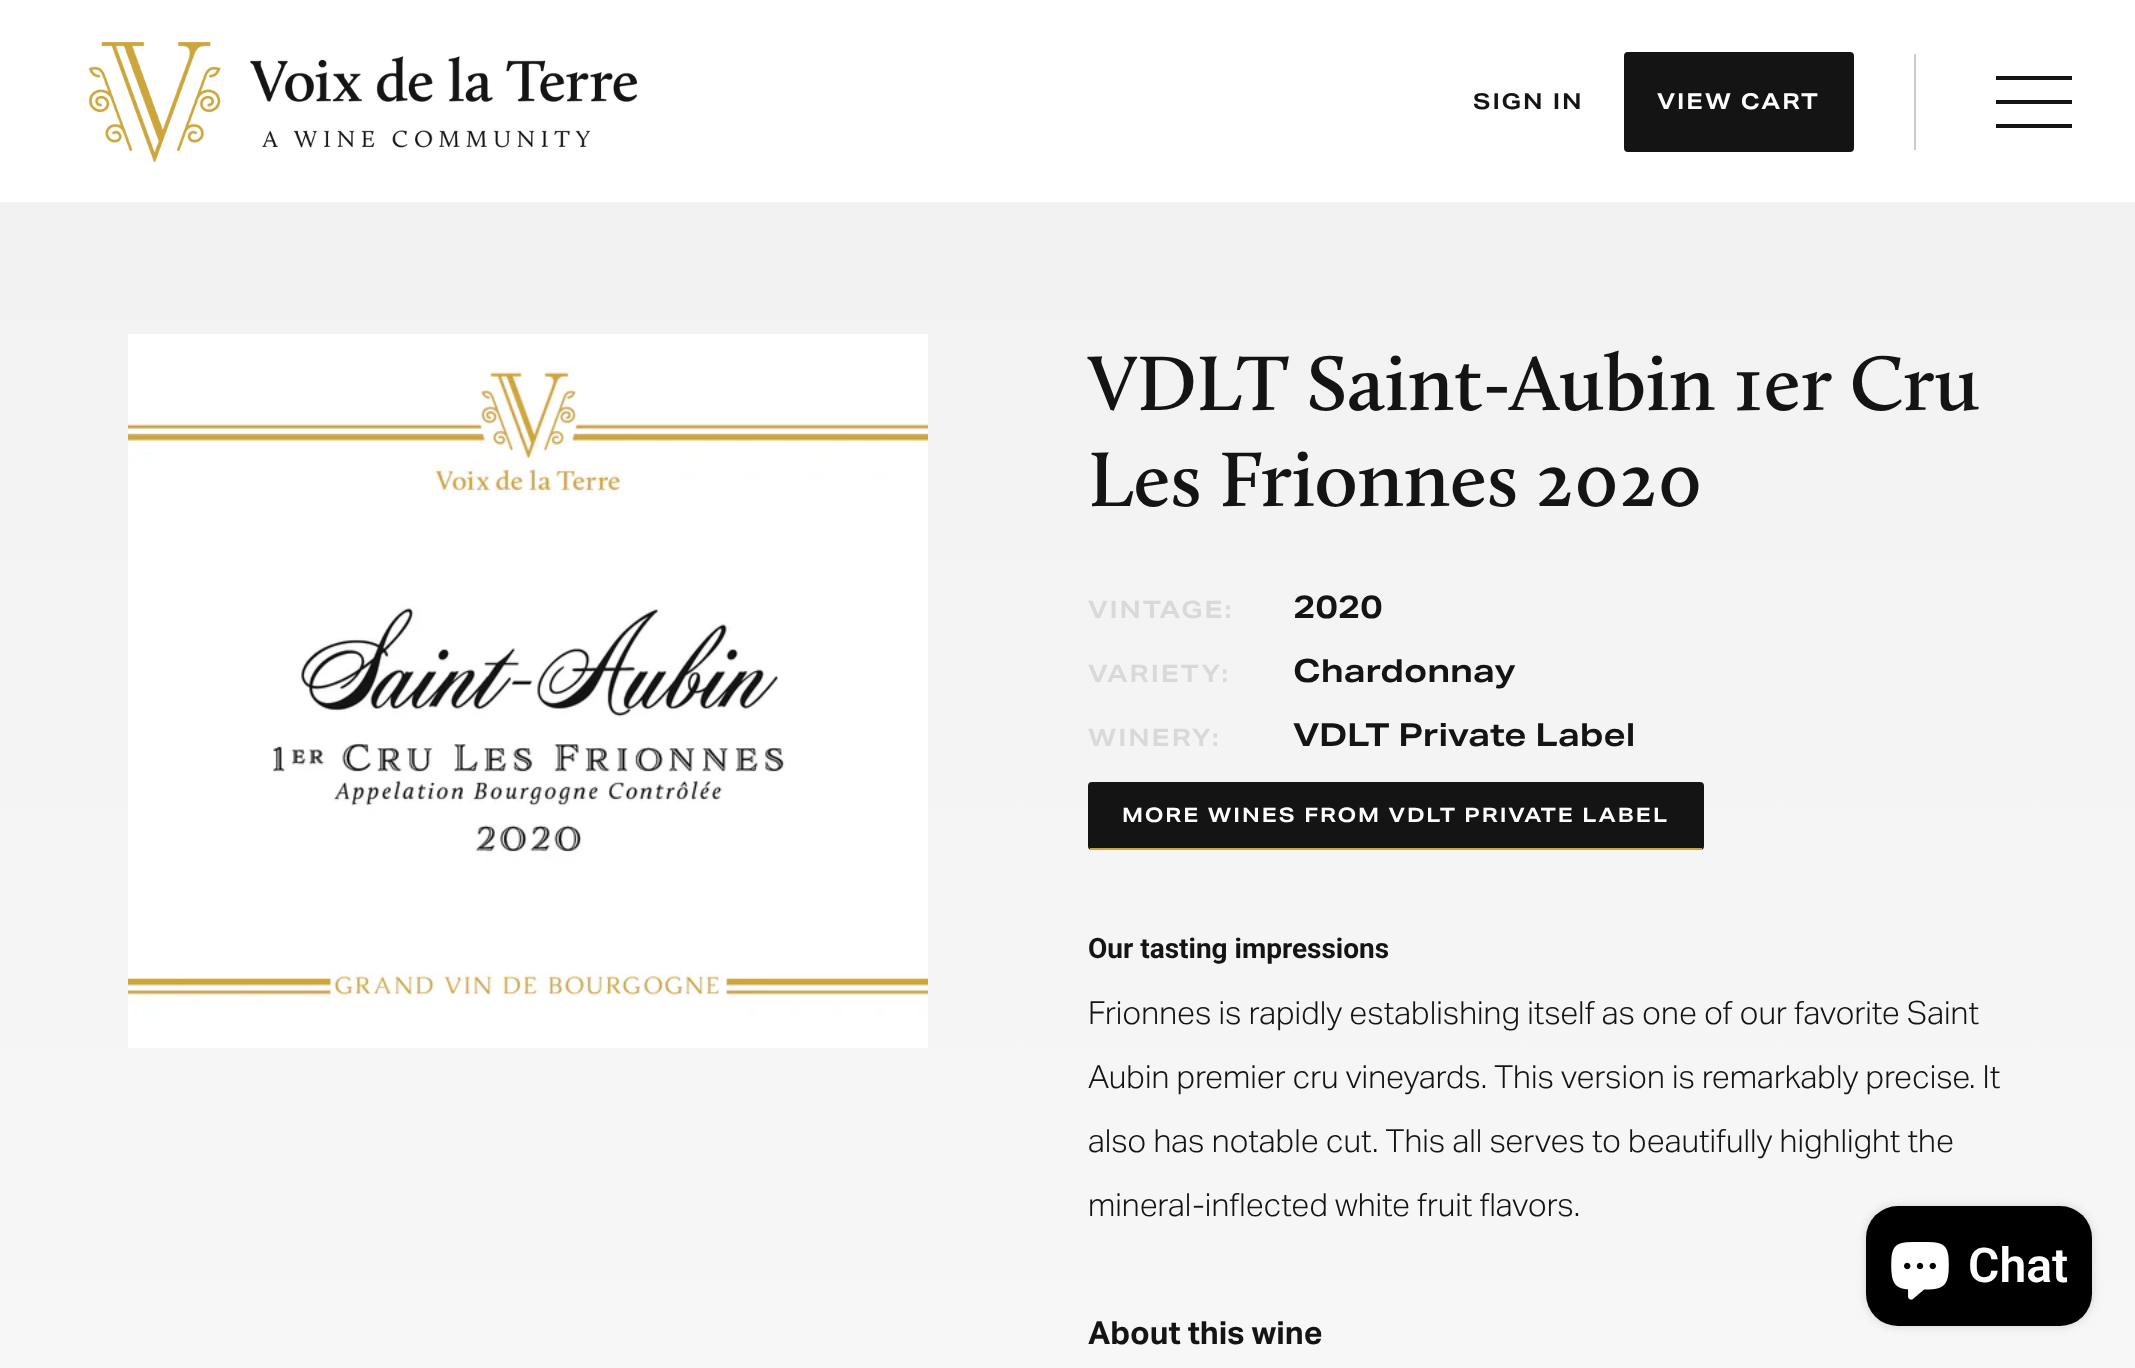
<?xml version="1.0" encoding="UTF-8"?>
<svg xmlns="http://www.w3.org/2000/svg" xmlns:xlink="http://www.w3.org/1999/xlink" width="2135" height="1368">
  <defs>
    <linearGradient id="g1" gradientUnits="userSpaceOnUse" x1="1068" y1="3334" x2="1068" y2="204"><stop offset="0" stop-color="#ffffff" /><stop offset="1" stop-color="#f2f2f2" /></linearGradient>
  </defs>
  <rect width="100%" height="100%" fill="#ffffff" />
  <rect y="202" width="2135" height="2" fill="#f2f2f2" />
  <image x="88" y="42" width="550" height="120" xlink:href="image1.png" />
  <rect x="1625" y="53" width="228" height="98" rx="3" fill="#141414" stroke="#141414" stroke-width="2" />
  <rect x="1914" y="54" width="2" height="96" fill="#cccccc" />
  <rect x="1996" y="76" width="76" height="4" fill="#141414" />
  <rect x="1996" y="100" width="76" height="4" fill="#141414" />
  <rect x="1996" y="124" width="76" height="4" fill="#141414" />
  <rect y="204" width="2135" height="1164" fill="url(#g1)" />
  <image x="128" y="334" width="800" height="714" xlink:href="image2.png" />
  <rect x="1089" y="783" width="614" height="66" rx="3" fill="#141414" stroke="#141414" stroke-width="2" />
  <rect x="1090" y="848" width="612" height="2" fill="#cca63d" />
  <rect x="1866" y="1206" width="226" height="120" rx="32" fill="#000000" fill-opacity="0.15" filter="blur(5px)" />
  <rect x="1866" y="1206" width="226" height="120" rx="32" fill="#000000" />
  <image x="1891" y="1242" width="58" height="58" xlink:href="image3.png" />
  <text x="1473" y="109" style="font-family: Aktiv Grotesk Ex; font-size: 22px; font-weight: bold; letter-spacing: 2px; fill: #141414">SIGN IN</text>
  <text x="1657" y="109" style="font-family: Aktiv Grotesk Ex; font-size: 22px; font-weight: bold; letter-spacing: 2px; fill: #ffffff">VIEW CART</text>
  <text x="1088" y="410" style="font-family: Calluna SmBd; font-size: 80px; font-weight: 600; fill: #141414">VDLT Saint-Aubin 1er Cru</text>
  <text x="1088" y="506" style="font-family: Calluna SmBd; font-size: 80px; font-weight: 600; fill: #141414">Les Frionnes 2020</text>
  <text x="1088" y="618" style="font-family: Aktiv Grotesk Ex; font-size: 24px; font-weight: bold; letter-spacing: 2px; fill: #d9d9d9">VINTAGE:</text>
  <text x="1293" y="618" style="font-family: Aktiv Grotesk Ex; font-size: 32px; font-weight: bold; fill: #141414">2020</text>
  <text x="1088" y="682" style="font-family: Aktiv Grotesk Ex; font-size: 24px; font-weight: bold; letter-spacing: 2px; fill: #d9d9d9">VARIETY:</text>
  <text x="1293" y="682" style="font-family: Aktiv Grotesk Ex; font-size: 32px; font-weight: bold; fill: #141414">Chardonnay</text>
  <text x="1088" y="746" style="font-family: Aktiv Grotesk Ex; font-size: 24px; font-weight: bold; letter-spacing: 2px; fill: #d9d9d9">WINERY:</text>
  <text x="1293" y="746" style="font-family: Aktiv Grotesk Ex; font-size: 32px; font-weight: bold; fill: #141414">VDLT Private Label</text>
  <text x="1122" y="822" style="font-family: Aktiv Grotesk Ex; font-size: 20px; font-weight: bold; letter-spacing: 2px; fill: #ffffff">MORE WINES FROM VDLT PRIVATE LABEL</text>
  <text x="1088" y="958" style="font-family: Roboto; font-size: 28px; font-weight: bold; fill: #141414">Our tasting impressions</text>
  <text x="1088" y="1024" style="font-family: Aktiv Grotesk; font-size: 32px; font-weight: 300; fill: #141414">Frionnes is rapidly establishing itself as one of our favorite Saint</text>
  <text x="1088" y="1088" style="font-family: Aktiv Grotesk; font-size: 32px; font-weight: 300; fill: #141414">Aubin premier cru vineyards. This version is remarkably precise. It</text>
  <text x="1088" y="1152" style="font-family: Aktiv Grotesk; font-size: 32px; font-weight: 300; fill: #141414">also has notable cut. This all serves to beautifully highlight the</text>
  <text x="1088" y="1216" style="font-family: Aktiv Grotesk; font-size: 32px; font-weight: 300; fill: #141414">mineral-inflected white fruit flavors.</text>
  <text x="1088" y="1344" style="font-family: Aktiv Grotesk; font-size: 32px; font-weight: bold; fill: #141414">About this wine</text>
  <text x="1968" y="1282" style="font-family: Roboto; font-size: 48px; font-weight: 600; fill: #ffffff">Chat</text>
</svg>
